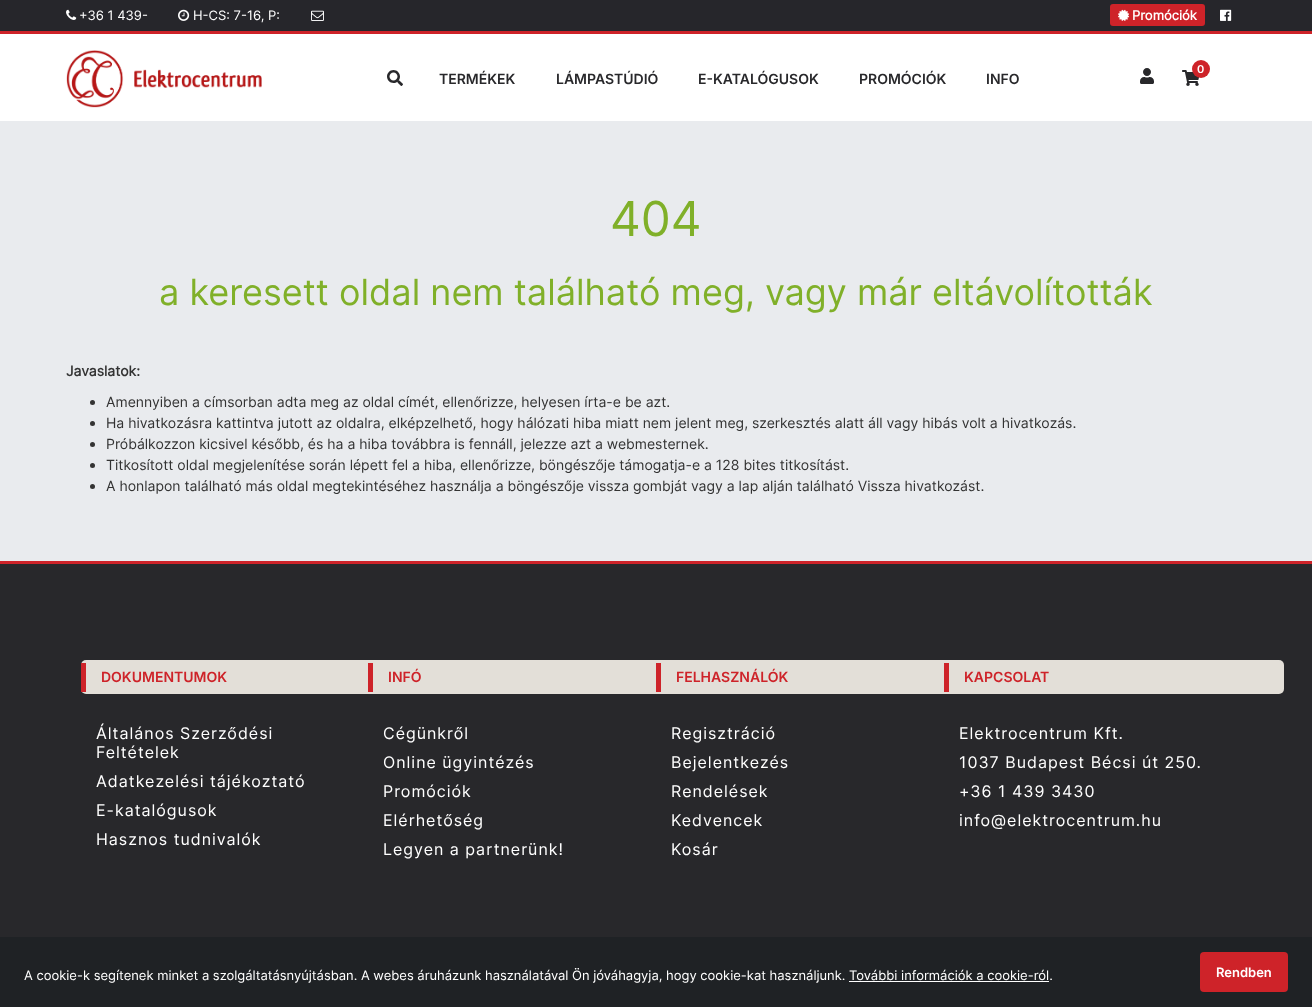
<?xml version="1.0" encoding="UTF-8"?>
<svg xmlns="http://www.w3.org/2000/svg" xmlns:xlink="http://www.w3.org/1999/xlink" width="1312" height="1007">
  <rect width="100%" height="100%" fill="#e9ebee" />
  <rect width="1312" height="31" fill="#26262b" />
  <rect y="31" width="1312" height="3" fill="#ce2329" />
  <image x="66" y="9" width="11" height="11" xlink:href="image1.png" />
  <image x="178" y="9" width="12" height="12" xlink:href="image2.png" />
  <image x="311" y="10" width="13" height="11" xlink:href="image3.png" />
  <rect x="1110" y="4" width="95" height="22" rx="3" fill="#ce2329" />
  <image x="1118" y="9" width="12" height="12" xlink:href="image4.png" />
  <image x="1220" y="9" width="12" height="12" xlink:href="image5.png" />
  <rect y="34" width="1312" height="87" fill="#ffffff" />
  <image x="66" y="50" width="196" height="58" xlink:href="image6.png" />
  <image x="387" y="70" width="16" height="16" xlink:href="image7.png" />
  <image x="1140" y="68" width="14" height="16" xlink:href="image8.png" />
  <image x="1182" y="70" width="17" height="16" xlink:href="image9.png" />
  <circle cx="1201" cy="69" r="9" fill="#ce2329" />
  <circle cx="92.5" cy="402.5" r="2.5" fill="#333333" />
  <circle cx="92.5" cy="423.5" r="2.5" fill="#333333" />
  <circle cx="92.5" cy="444.5" r="2.5" fill="#333333" />
  <circle cx="92.5" cy="465.5" r="2.5" fill="#333333" />
  <circle cx="92.5" cy="486.5" r="2.5" fill="#333333" />
  <rect y="564" width="1312" height="373" fill="#28282b" />
  <rect y="561" width="1312" height="3" fill="#ce2329" />
  <rect x="81" y="660" width="340" height="34" rx="5" fill="#e3dfd8" />
  <rect x="81" y="663" width="5" height="29" fill="#ce2329" />
  <rect x="368" y="660" width="340" height="34" rx="5" fill="#e3dfd8" />
  <rect x="368" y="663" width="5" height="29" fill="#ce2329" />
  <rect x="656" y="660" width="340" height="34" rx="5" fill="#e3dfd8" />
  <rect x="656" y="663" width="5" height="29" fill="#ce2329" />
  <rect x="944" y="660" width="340" height="34" rx="5" fill="#e3dfd8" />
  <rect x="944" y="663" width="5" height="29" fill="#ce2329" />
  <rect y="937" width="1312" height="70" fill="#1f2225" />
  <rect x="849" y="981" width="200" height="1" fill="#ffffff" />
  <rect x="1200" y="952" width="88" height="40" rx="4" fill="#ce2329" />
  <text x="79" y="20" style="font-family: Inter; font-size: 13px; fill: #ffffff">+36 1 439-</text>
  <text x="193" y="20" style="font-family: Inter; font-size: 13px; fill: #ffffff">H-CS: 7-16, P:</text>
  <text x="1132" y="20" style="font-family: Inter; font-size: 13px; font-weight: bold; fill: #ffffff">Promóciók</text>
  <text x="439" y="84" style="font-family: Inter; font-size: 14px; font-weight: 600; fill: #28282b">TERMÉKEK</text>
  <text x="556" y="84" style="font-family: Inter; font-size: 14px; font-weight: 600; fill: #28282b">LÁMPASTÚDIÓ</text>
  <text x="698" y="84" style="font-family: Inter; font-size: 14px; font-weight: 600; fill: #28282b">E-KATALÓGUSOK</text>
  <text x="859" y="84" style="font-family: Inter; font-size: 14px; font-weight: 600; fill: #28282b">PROMÓCIÓK</text>
  <text x="986" y="84" style="font-family: Inter; font-size: 14px; font-weight: 600; fill: #28282b">INFO</text>
  <text x="1197" y="73" style="font-family: Inter; font-size: 11px; font-weight: 600; fill: #ffffff">0</text>
  <text x="610" y="236" style="font-family: Inter; font-size: 48px; fill: #80b029">404</text>
  <text x="159" y="305" style="font-family: Inter; font-size: 36px; fill: #80b029">a keresett oldal nem található meg, vagy már eltávolították</text>
  <text x="66" y="376" style="font-family: Inter; font-size: 14px; font-weight: bold; fill: #333333">Javaslatok:</text>
  <text x="106" y="407" style="font-family: Inter; font-size: 14px; fill: #333333">Amennyiben a címsorban adta meg az oldal címét, ellenőrizze, helyesen írta-e be azt.</text>
  <text x="106" y="428" style="font-family: Inter; font-size: 14px; fill: #333333">Ha hivatkozásra kattintva jutott az oldalra, elképzelhető, hogy hálózati hiba miatt nem jelent meg, szerkesztés alatt áll vagy hibás volt a hivatkozás.</text>
  <text x="106" y="449" style="font-family: Inter; font-size: 14px; fill: #333333">Próbálkozzon kicsivel később, és ha a hiba továbbra is fennáll, jelezze azt a webmesternek.</text>
  <text x="106" y="470" style="font-family: Inter; font-size: 14px; fill: #333333">Titkosított oldal megjelenítése során lépett fel a hiba, ellenőrizze, böngészője támogatja-e a 128 bites titkosítást.</text>
  <text x="106" y="491" style="font-family: Inter; font-size: 14px; fill: #333333">A honlapon található más oldal megtekintéséhez használja a böngészője vissza gombját vagy a lap alján található Vissza hivatkozást.</text>
  <text x="101" y="682" style="font-family: Inter; font-size: 14px; font-weight: 600; fill: #ce2329">DOKUMENTUMOK</text>
  <text x="96" y="739" style="font-family: Inter; font-size: 16px; letter-spacing: 1px; fill: #ffffff">Általános Szerződési</text>
  <text x="96" y="758" style="font-family: Inter; font-size: 16px; letter-spacing: 1px; fill: #ffffff">Feltételek</text>
  <text x="96" y="787" style="font-family: Inter; font-size: 16px; letter-spacing: 1px; fill: #ffffff">Adatkezelési tájékoztató</text>
  <text x="96" y="816" style="font-family: Inter; font-size: 16px; letter-spacing: 1px; fill: #ffffff">E-katalógusok</text>
  <text x="96" y="845" style="font-family: Inter; font-size: 16px; letter-spacing: 1px; fill: #ffffff">Hasznos tudnivalók</text>
  <text x="388" y="682" style="font-family: Inter; font-size: 14px; font-weight: 600; fill: #ce2329">INFÓ</text>
  <text x="383" y="739" style="font-family: Inter; font-size: 16px; letter-spacing: 1px; fill: #ffffff">Cégünkről</text>
  <text x="383" y="768" style="font-family: Inter; font-size: 16px; letter-spacing: 1px; fill: #ffffff">Online ügyintézés</text>
  <text x="383" y="797" style="font-family: Inter; font-size: 16px; letter-spacing: 1px; fill: #ffffff">Promóciók</text>
  <text x="383" y="826" style="font-family: Inter; font-size: 16px; letter-spacing: 1px; fill: #ffffff">Elérhetőség</text>
  <text x="383" y="855" style="font-family: Inter; font-size: 16px; letter-spacing: 1px; fill: #ffffff">Legyen a partnerünk!</text>
  <text x="676" y="682" style="font-family: Inter; font-size: 14px; font-weight: 600; fill: #ce2329">FELHASZNÁLÓK</text>
  <text x="671" y="739" style="font-family: Inter; font-size: 16px; letter-spacing: 1px; fill: #ffffff">Regisztráció</text>
  <text x="671" y="768" style="font-family: Inter; font-size: 16px; letter-spacing: 1px; fill: #ffffff">Bejelentkezés</text>
  <text x="671" y="797" style="font-family: Inter; font-size: 16px; letter-spacing: 1px; fill: #ffffff">Rendelések</text>
  <text x="671" y="826" style="font-family: Inter; font-size: 16px; letter-spacing: 1px; fill: #ffffff">Kedvencek</text>
  <text x="671" y="855" style="font-family: Inter; font-size: 16px; letter-spacing: 1px; fill: #ffffff">Kosár</text>
  <text x="964" y="682" style="font-family: Inter; font-size: 14px; font-weight: 600; fill: #ce2329">KAPCSOLAT</text>
  <text x="959" y="739" style="font-family: Inter; font-size: 16px; letter-spacing: 1px; fill: #ffffff">Elektrocentrum Kft.</text>
  <text x="959" y="768" style="font-family: Inter; font-size: 16px; letter-spacing: 1px; fill: #ffffff">1037 Budapest Bécsi út 250.</text>
  <text x="959" y="797" style="font-family: Inter; font-size: 16px; letter-spacing: 1px; fill: #ffffff">+36 1 439 3430</text>
  <text x="959" y="826" style="font-family: Inter; font-size: 16px; letter-spacing: 1px; fill: #ffffff">info@elektrocentrum.hu</text>
  <text x="24" y="980" style="font-family: Inter; font-size: 13px; fill: #ffffff">A cookie-k segítenek minket a szolgáltatásnyújtásban. A webes áruházunk használatával Ön jóváhagyja, hogy cookie-kat használjunk. További információk a cookie-ról.</text>
  <text x="1216" y="977" style="font-family: Inter; font-size: 13px; font-weight: 600; fill: #ffffff">Rendben</text>
</svg>
